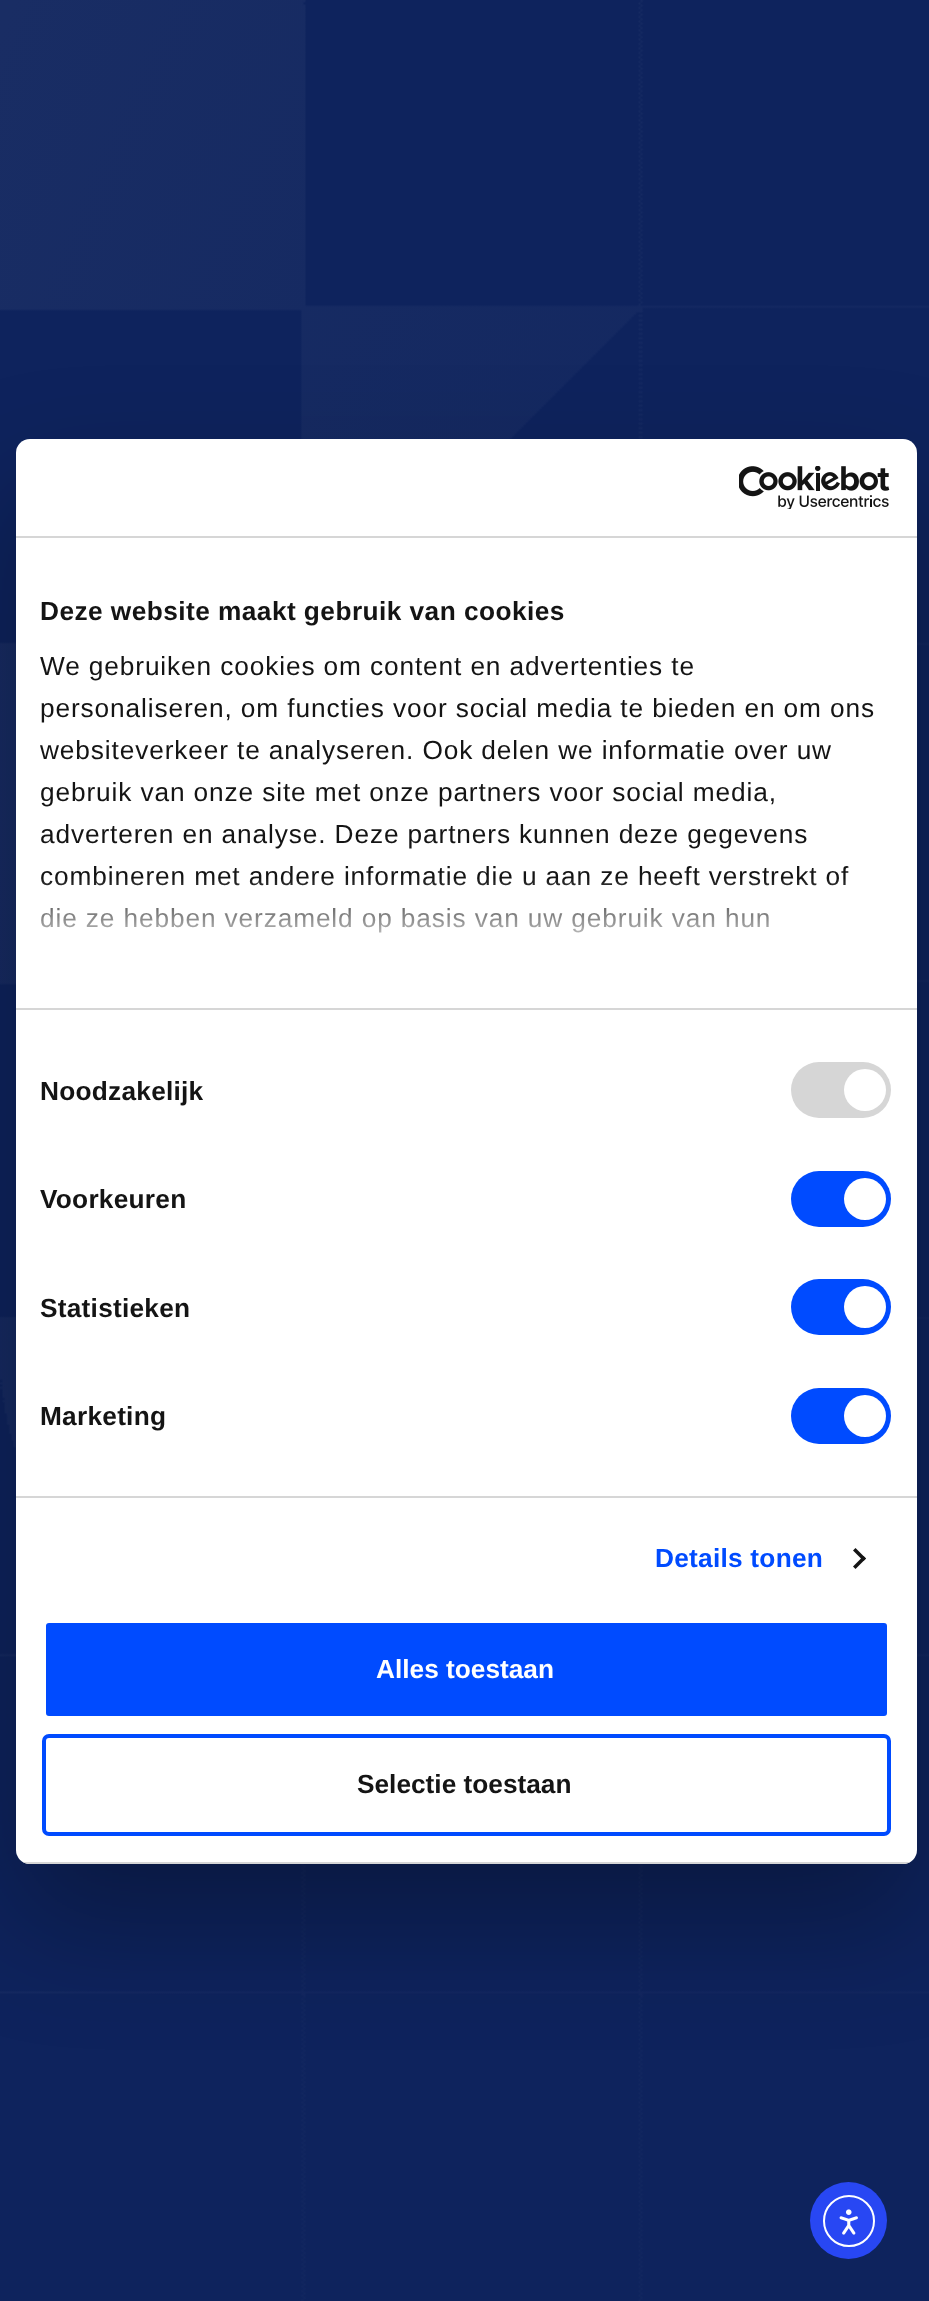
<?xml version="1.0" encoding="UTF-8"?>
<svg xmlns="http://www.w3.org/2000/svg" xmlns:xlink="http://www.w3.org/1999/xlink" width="929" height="2301">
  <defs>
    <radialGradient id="g1" gradientUnits="userSpaceOnUse" cx="0" cy="0" r="1" gradientTransform="matrix(1314 0 0 3254 929 2301)"><stop offset="0.5" stop-color="#0e235d" stop-opacity="0.6" /><stop offset="1" stop-color="#0e235d" stop-opacity="0" /></radialGradient>
    <clipPath id="clip1"><rect x="16" y="439" width="901" height="1425" rx="14" /></clipPath>
    <linearGradient id="g2" gradientUnits="userSpaceOnUse" x1="454" y1="1008" x2="454" y2="877"><stop offset="0" stop-color="#ffffff" /><stop offset="0.5" stop-color="#ffffff" stop-opacity="0.8" /><stop offset="1" stop-color="#ffffff" stop-opacity="0" /></linearGradient>
  </defs>
  <rect width="100%" height="100%" fill="#0e235d" />
  <image x="0" y="0" width="929" height="2301" xlink:href="image1.png" />
  <rect width="929" height="2301" fill="url(#g1)" />
  <rect x="16" y="495" width="901" height="1425" rx="14" fill="#000000" fill-opacity="0.3" filter="blur(59.5px)" />
  <rect x="16" y="439" width="901" height="1425" rx="14" fill="#ffffff" />
  <rect x="16" y="536" width="901" height="2" fill="#d6d6d6" />
  <image x="739" y="466" width="151" height="43" xlink:href="image2.png" />
  <rect x="16" y="1008" width="901" height="2" fill="#d6d6d6" />
  <rect x="16" y="1496" width="901" height="2" fill="#d6d6d6" />
  <rect x="791" y="1062" width="100" height="56" rx="28" fill="#d6d6d6" />
  <circle cx="865" cy="1090" r="21" fill="#ffffff" />
  <rect x="791" y="1171" width="100" height="56" rx="28" fill="#004bff" />
  <circle cx="865" cy="1199" r="21" fill="#ffffff" />
  <rect x="791" y="1279" width="100" height="56" rx="28" fill="#004bff" />
  <circle cx="865" cy="1307" r="21" fill="#ffffff" />
  <rect x="791" y="1388" width="100" height="56" rx="28" fill="#004bff" />
  <circle cx="865" cy="1416" r="21" fill="#ffffff" />
  <path d="M 855.5 1548 l 10.5 10.5 l -2.5 2.5 l -10.5 -10.5 z" fill="#141414" />
  <path d="M 863.5 1556 l 2.5 2.5 l -10.5 10.5 l -2.5 -2.5 z" fill="#141414" />
  <g clip-path="url(#clip1)">
    <rect x="16" y="1862" width="901" height="2" fill="#d6d6d6" />
  </g>
  <rect x="44" y="1621" width="845" height="97" rx="5" fill="#004bff" stroke="#ffffff" stroke-width="4" />
  <rect x="44" y="1736" width="845" height="98" rx="5" fill="none" stroke="#004bff" stroke-width="4" />
  <circle cx="848.5" cy="2220.5" r="38.5" fill="#2847f3" />
  <circle cx="849" cy="2221" r="25" fill="none" stroke="#ffffff" stroke-width="2" />
  <image x="839" y="2209" width="19" height="26" xlink:href="image3.png" />
  <text x="40" y="620" style="font-family: Liberation Sans; font-size: 26.25px; font-weight: bold; letter-spacing: 0.45px; fill: #141414">Deze website maakt gebruik van cookies</text>
  <text x="40" y="675" style="font-family: Liberation Sans; font-size: 26.25px; letter-spacing: 0.88px; fill: #141414">We gebruiken cookies om content en advertenties te</text>
  <text x="40" y="717" style="font-family: Liberation Sans; font-size: 26.25px; letter-spacing: 0.88px; fill: #141414">personaliseren, om functies voor social media te bieden en om ons</text>
  <text x="40" y="759" style="font-family: Liberation Sans; font-size: 26.25px; letter-spacing: 0.88px; fill: #141414">websiteverkeer te analyseren. Ook delen we informatie over uw</text>
  <text x="40" y="801" style="font-family: Liberation Sans; font-size: 26.25px; letter-spacing: 0.88px; fill: #141414">gebruik van onze site met onze partners voor social media,</text>
  <text x="40" y="843" style="font-family: Liberation Sans; font-size: 26.25px; letter-spacing: 0.88px; fill: #141414">adverteren en analyse. Deze partners kunnen deze gegevens</text>
  <text x="40" y="885" style="font-family: Liberation Sans; font-size: 26.25px; letter-spacing: 0.88px; fill: #141414">combineren met andere informatie die u aan ze heeft verstrekt of</text>
  <text x="40" y="927" style="font-family: Liberation Sans; font-size: 26.25px; letter-spacing: 0.88px; fill: #141414">die ze hebben verzameld op basis van uw gebruik van hun</text>
  <rect x="41" y="879" width="805" height="54" fill="url(#g2)" />
  <text x="40" y="1100" style="font-family: Liberation Sans; font-size: 26.25px; font-weight: bold; letter-spacing: 0.25px; fill: #141414">Noodzakelijk</text>
  <text x="40" y="1208" style="font-family: Liberation Sans; font-size: 26.25px; font-weight: bold; letter-spacing: 0.25px; fill: #141414">Voorkeuren</text>
  <text x="40" y="1317" style="font-family: Liberation Sans; font-size: 26.25px; font-weight: bold; letter-spacing: 0.25px; fill: #141414">Statistieken</text>
  <text x="40" y="1425" style="font-family: Liberation Sans; font-size: 26.25px; font-weight: bold; letter-spacing: 0.25px; fill: #141414">Marketing</text>
  <text x="655" y="1567" style="font-family: Liberation Sans; font-size: 26.25px; font-weight: bold; letter-spacing: 0.25px; fill: #004bff">Details tonen</text>
  <text x="376" y="1678" style="font-family: Liberation Sans; font-size: 26.25px; font-weight: bold; fill: #ffffff">Alles toestaan</text>
  <text x="357" y="1793" style="font-family: Liberation Sans; font-size: 26.25px; font-weight: bold; fill: #141414">Selectie toestaan</text>
</svg>
